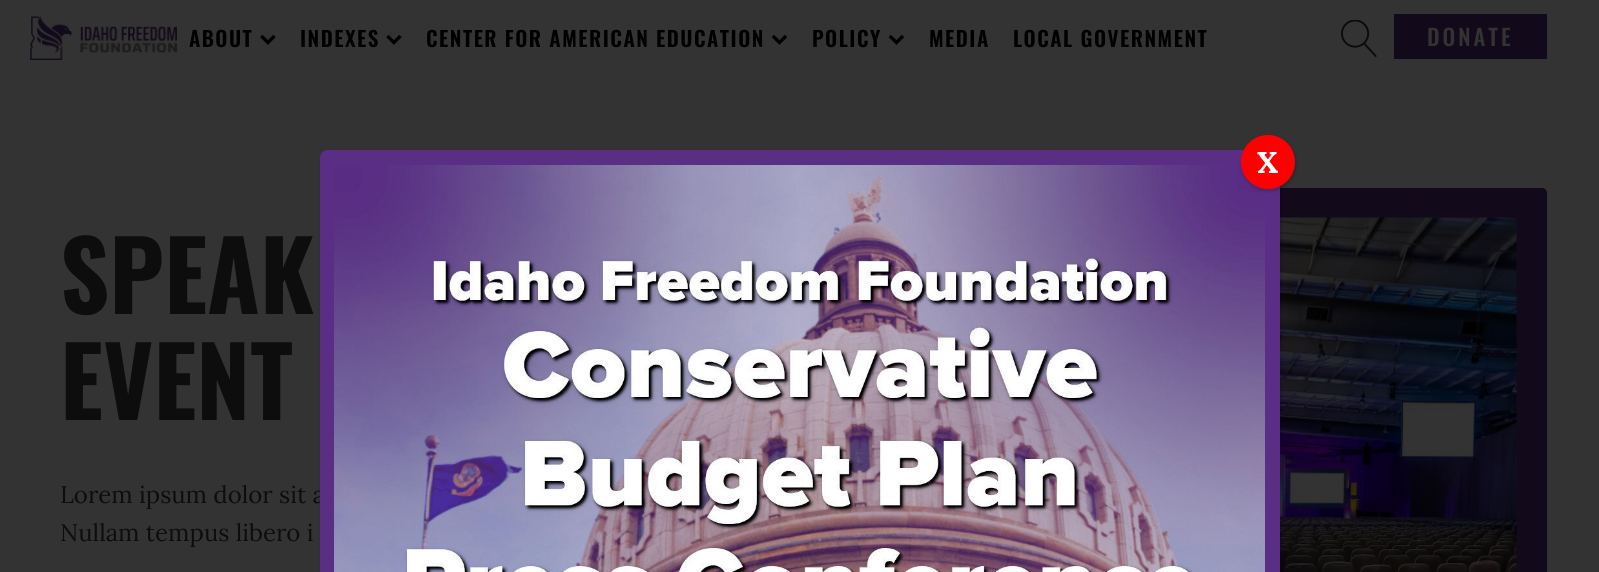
import math
import cairo

surface = cairo.ImageSurface(cairo.FORMAT_RGB24, 1599, 572)
cr = cairo.Context(surface)
options = cairo.FontOptions()
options.set_hint_metrics(cairo.HINT_METRICS_OFF)
options.set_hint_style(cairo.HINT_STYLE_NONE)
cr.set_font_options(options)
cr.set_miter_limit(4)


def rgb(code):
    cr.set_source_rgb(*(v / 255 for v in bytes.fromhex(code[-6:])))


def tracked(x, y, s, letter, word):
    cr.move_to(x, y)
    for ch in s:
        cr.show_text(ch)
        cr.rel_move_to(letter + word * (ch == ' '), 0)


def rrect(x, y, w, h, r):
    cr.new_sub_path()
    for i, (u, v) in enumerate([(x + w - r, y + h - r), (x + r, y + h - r), (x + r, y + r), (x + w - r, y + r)]):
        cr.arc(u, v, r, i * math.pi / 2, (i + 1) * math.pi / 2)
    cr.close_path()


def soft_shadow(x, y, w, h, r, blur, alpha):
    cr.push_group_with_content(cairo.CONTENT_ALPHA)
    cr.set_operator(cairo.OPERATOR_SOURCE)
    for i in range(15, -16, -2):
        e = blur * i / 6
        if min(w, h) + 2 * e > 0:
            cr.set_source_rgba(0, 0, 0, alpha * math.erfc((i - 1) / 8.5) / 2)
            rrect(x - e, y - e, w + 2 * e, h + 2 * e, max(0, min(r + e + blur * .6, min(w, h) / 2 + e)))
            cr.fill()
    cr.mask(cr.pop_group())


def image(path, x, y, w, h):
    cr.save()
    cr.set_source_surface(cairo.ImageSurface.create_from_png(path), x, y)
    cr.rectangle(x, y, w, h)
    cr.fill()
    cr.restore()


rgb("#333333")
cr.paint()
image("img/1.png", 30, 16, 147, 44)
image("img/2.png", 260, 35, 16, 10)
image("img/2.png", 386, 35, 16, 10)
image("img/3.png", 771, 35, 16, 10)
image("img/3.png", 888, 35, 16, 10)
image("img/4.png", 1341, 20, 36, 37)
rgb("#12091b")
cr.rectangle(1394, 14, 153, 45)
cr.fill()
rrect(789, 188, 758, 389, 5)
cr.fill()
image("img/6.png", 1280, 217, 237, 355)
rgb("#020202")
soft_shadow(321, 152, 960, 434, 8, 2, 0.23)
cr.select_font_face("Oswald SemiBold")
cr.set_font_size(21)
rgb("#000000")
for x, y, s in [
    (189, 47, "ABOUT"),
    (300, 47, "INDEXES"),
    (426, 47, "CENTER FOR AMERICAN EDUCATION"),
    (812, 47, "POLICY"),
    (929, 47, "MEDIA"),
    (1013, 47, "LOCAL GOVERNMENT"),
]:
    tracked(x, y, s, 1.5, 0)
cr.select_font_face("Oswald Medium")
cr.set_font_size(22.5)
rgb("#333333")
tracked(1427, 46, "DONATE", 3, 0)
cr.select_font_face("Oswald", cairo.FONT_SLANT_NORMAL, cairo.FONT_WEIGHT_BOLD)
cr.set_font_size(96)
rgb("#0d0d0d")
cr.move_to(60, 314)
cr.show_text("SPEAK")
cr.move_to(60, 420)
cr.show_text("EVENT")
cr.select_font_face("Lora")
cr.set_font_size(24)
cr.move_to(60, 503)
cr.show_text("Lorem ipsum dolor sit a")
rgb("#5b2e85")
cr.new_path()
cr.move_to(328, 150)
cr.line_to(1272, 150)
cr.curve_to(1276.5, 150, 1280, 153.5, 1280, 158)
cr.line_to(1280, 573)
cr.line_to(320, 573)
cr.line_to(320, 158)
cr.curve_to(320, 153.5, 323.5, 150, 328, 150)
cr.close_path()
cr.fill()
image("img/5.png", 334, 165, 931, 407)
rgb("#020202")
soft_shadow(1242, 137, 54, 54, 27, 2, 0.23)
rgb("#ff0000")
cr.arc(1268, 162, 27, 0, 2 * math.pi)
cr.fill()
cr.select_font_face("Lora", cairo.FONT_SLANT_NORMAL, cairo.FONT_WEIGHT_BOLD)
cr.set_font_size(30)
rgb("#ffffff")
cr.move_to(1257, 173)
cr.show_text("X")
cr.select_font_face("Lora")
cr.set_font_size(24)
rgb("#0d0d0d")
cr.move_to(60, 541)
cr.show_text("Nullam tempus libero i")
surface.write_to_png("page.png")
